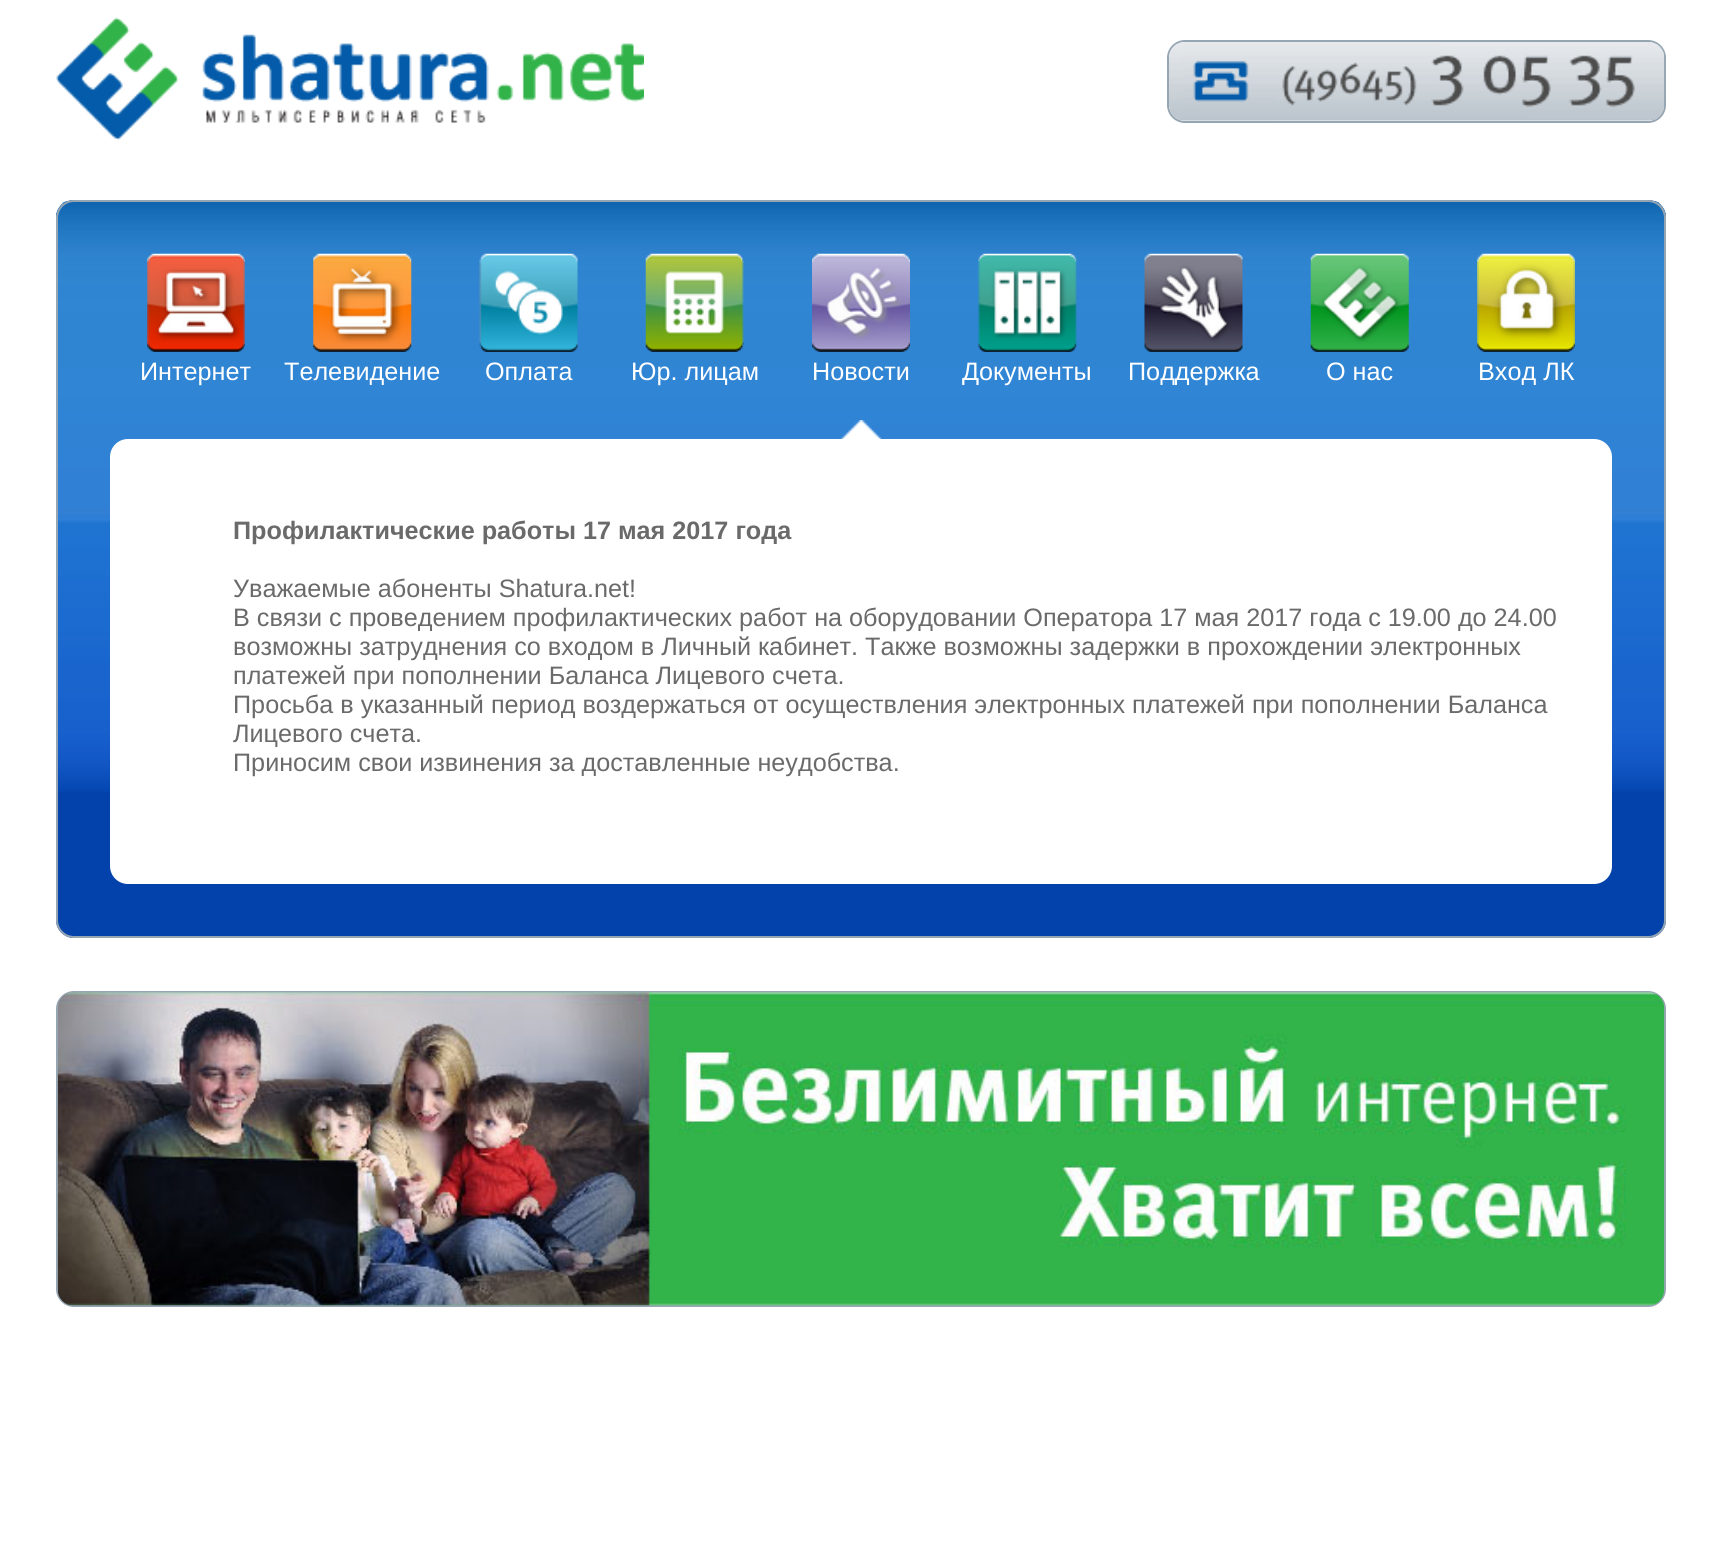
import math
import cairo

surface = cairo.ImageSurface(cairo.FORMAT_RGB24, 1722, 1544)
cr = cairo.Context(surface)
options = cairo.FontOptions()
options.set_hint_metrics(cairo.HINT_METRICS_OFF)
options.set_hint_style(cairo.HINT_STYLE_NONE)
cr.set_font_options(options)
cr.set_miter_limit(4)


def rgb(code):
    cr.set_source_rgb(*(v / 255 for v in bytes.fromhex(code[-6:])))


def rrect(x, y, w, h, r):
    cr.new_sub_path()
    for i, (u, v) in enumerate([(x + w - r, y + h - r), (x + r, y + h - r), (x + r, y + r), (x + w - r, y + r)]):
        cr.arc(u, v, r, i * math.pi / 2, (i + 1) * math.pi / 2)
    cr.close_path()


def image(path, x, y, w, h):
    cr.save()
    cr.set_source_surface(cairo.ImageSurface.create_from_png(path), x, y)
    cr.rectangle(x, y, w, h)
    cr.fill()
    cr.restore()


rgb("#ffffff")
cr.paint()
image("img/1.png", 56, 17, 588, 123)
rrect(1168, 41, 497, 81, 17)
rgb("#95a5b2")
cr.stroke()
image("img/2.png", 1169, 42, 496, 79)
rgb("#0342aa")
rrect(56, 200, 1610, 738, 18)
cr.fill()
image("img/3.png", 56, 201, 1610, 591)
rrect(57, 201, 1608, 736, 17)
rgb("#95a5b2")
cr.stroke()
image("img/4.png", 147, 253, 98, 99)
image("img/5.png", 313, 253, 99, 99)
image("img/6.png", 479, 253, 99, 99)
image("img/7.png", 645, 253, 99, 99)
image("img/8.png", 812, 253, 98, 99)
image("img/9.png", 840, 420, 42, 19)
image("img/10.png", 978, 253, 99, 99)
image("img/11.png", 1144, 253, 99, 99)
image("img/12.png", 1310, 253, 99, 99)
image("img/13.png", 1477, 253, 98, 99)
rgb("#ffffff")
rrect(110, 439, 1502, 445, 18)
cr.fill()
rrect(57, 992, 1608, 314, 17)
rgb("#95a5b2")
cr.stroke()
image("img/14.png", 57, 992, 1608, 314)
cr.select_font_face("Liberation Sans")
cr.set_font_size(25.2)
rgb("#ffffff")
for x, y, s in [
    (140, 380, "Интернет"),
    (284, 380, "Телевидение"),
    (485, 380, "Оплата"),
    (631, 380, "Юр. лицам"),
    (812, 380, "Новости"),
    (962, 380, "Документы"),
    (1128, 380, "Поддержка"),
    (1326, 380, "О нас"),
    (1478, 380, "Вход ЛК"),
]:
    cr.move_to(x, y)
    cr.show_text(s)
cr.select_font_face("Liberation Sans", cairo.FONT_SLANT_NORMAL, cairo.FONT_WEIGHT_BOLD)
rgb("#6a6a6a")
cr.move_to(233, 539)
cr.show_text("Профилактические работы 17 мая 2017 года")
cr.select_font_face("Liberation Sans")
for x, y, s in [
    (233, 597, "Уважаемые абоненты Shatura.net!"),
    (233, 626, "В связи с проведением профилактических работ на оборудовании Оператора 17 мая 2017 года с 19.00 до 24.00"),
    (233, 655, "возможны затруднения со входом в Личный кабинет. Также возможны задержки в прохождении электронных"),
    (233, 684, "платежей при пополнении Баланса Лицевого счета."),
    (233, 713, "Просьба в указанный период воздержаться от осуществления электронных платежей при пополнении Баланса"),
    (233, 742, "Лицевого счета."),
    (233, 771, "Приносим свои извинения за доставленные неудобства."),
]:
    cr.move_to(x, y)
    cr.show_text(s)
surface.write_to_png("page.png")
